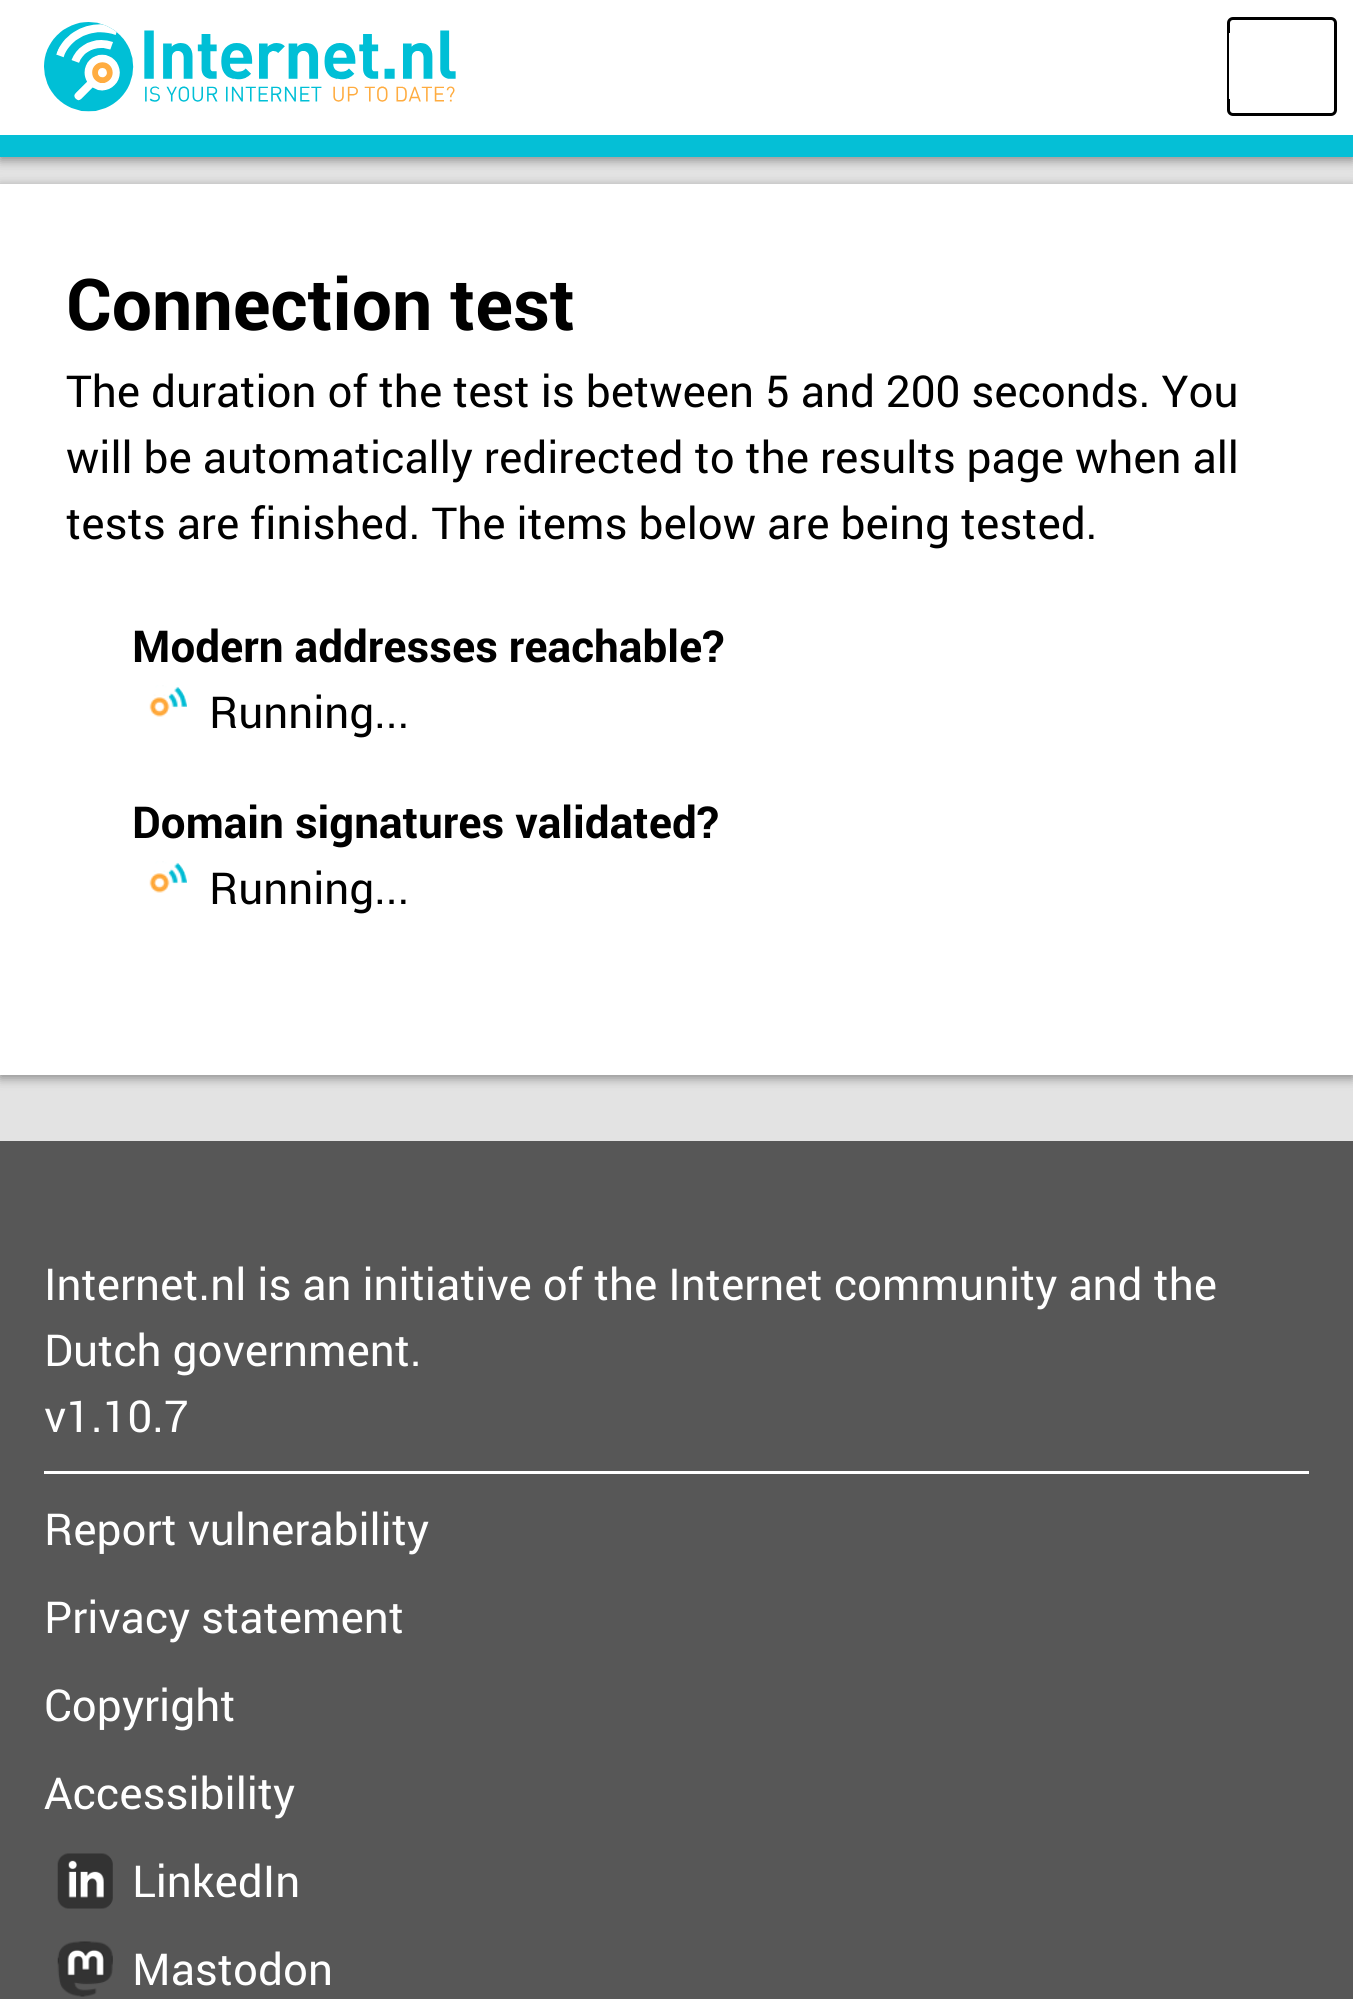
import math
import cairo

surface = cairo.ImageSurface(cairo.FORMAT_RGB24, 1353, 1999)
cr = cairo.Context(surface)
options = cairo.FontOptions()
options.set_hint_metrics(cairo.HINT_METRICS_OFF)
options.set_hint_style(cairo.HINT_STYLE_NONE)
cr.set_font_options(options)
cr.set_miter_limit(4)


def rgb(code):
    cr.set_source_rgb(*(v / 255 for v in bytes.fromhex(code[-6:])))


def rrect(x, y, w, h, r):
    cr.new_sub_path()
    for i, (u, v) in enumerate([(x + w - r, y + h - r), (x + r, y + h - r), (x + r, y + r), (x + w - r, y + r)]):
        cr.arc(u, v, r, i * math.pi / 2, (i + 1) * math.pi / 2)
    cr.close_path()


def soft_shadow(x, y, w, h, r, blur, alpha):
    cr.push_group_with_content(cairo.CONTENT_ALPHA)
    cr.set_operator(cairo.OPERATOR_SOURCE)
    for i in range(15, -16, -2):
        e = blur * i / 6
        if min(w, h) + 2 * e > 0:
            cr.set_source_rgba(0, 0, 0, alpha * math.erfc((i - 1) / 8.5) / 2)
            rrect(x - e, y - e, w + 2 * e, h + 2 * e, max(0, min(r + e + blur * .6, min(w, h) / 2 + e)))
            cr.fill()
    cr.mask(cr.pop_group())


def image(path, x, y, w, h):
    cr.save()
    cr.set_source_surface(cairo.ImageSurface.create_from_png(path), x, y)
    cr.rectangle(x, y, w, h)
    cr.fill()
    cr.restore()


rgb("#e3e3e3")
cr.paint()
rgb("#888888")
soft_shadow(0, 3, 1353, 157, 0, 5.5, 1)
rgb("#ffffff")
cr.rectangle(0, 0, 1353, 135)
cr.fill()
rgb("#05bfd6")
cr.rectangle(0, 135, 1353, 22)
cr.fill()
image("img/1.png", 44, 22, 412, 90)
rrect(1228.5, 18.5, 107, 96, 4.5)
rgb("#000000")
cr.set_line_width(3)
cr.stroke()
rgb("#ffffff")
cr.rectangle(1229, 33, 1, 66)
cr.fill()
rgb("#888888")
soft_shadow(0, 187, 1353, 891, 0, 5.5, 1)
rgb("#ffffff")
cr.rectangle(0, 184, 1353, 891)
cr.fill()
image("img/2.png", 149, 685, 38, 32)
image("img/2.png", 149, 861, 38, 32)
rgb("#575757")
cr.rectangle(0, 1141, 1353, 858)
cr.fill()
rgb("#ffffff")
cr.rectangle(44, 1471, 1265, 3)
cr.fill()
image("img/3.png", 57, 1853, 56, 56)
image("img/4.png", 57, 1941, 56, 56)
cr.select_font_face("roboto", cairo.FONT_SLANT_NORMAL, cairo.FONT_WEIGHT_BOLD)
cr.set_font_size(71.5)
rgb("#000000")
cr.move_to(66, 330)
cr.show_text("Connection test")
cr.select_font_face("roboto")
cr.set_font_size(44)
for x, y, s in [
    (66, 407, "The duration of the test is between 5 and 200 seconds. You"),
    (66, 473, "will be automatically redirected to the results page when all"),
    (66, 539, "tests are finished. The items below are being tested."),
]:
    cr.move_to(x, y)
    cr.show_text(s)
cr.select_font_face("roboto", cairo.FONT_SLANT_NORMAL, cairo.FONT_WEIGHT_BOLD)
cr.move_to(132, 662)
cr.show_text("Modern addresses reachable?")
cr.select_font_face("roboto")
cr.move_to(209, 728)
cr.show_text("Running...")
cr.select_font_face("roboto", cairo.FONT_SLANT_NORMAL, cairo.FONT_WEIGHT_BOLD)
cr.move_to(132, 838)
cr.show_text("Domain signatures validated?")
cr.select_font_face("roboto")
cr.move_to(209, 904)
cr.show_text("Running...")
rgb("#ffffff")
for x, y, s in [
    (44, 1300, "Internet.nl is an initiative of the Internet community and the"),
    (44, 1366, "Dutch government."),
    (44, 1432, "v1.10.7"),
    (44, 1545, "Report vulnerability"),
    (44, 1633, "Privacy statement"),
    (44, 1721, "Copyright"),
    (44, 1809, "Accessibility"),
    (132, 1897, "LinkedIn"),
    (132, 1985, "Mastodon"),
]:
    cr.move_to(x, y)
    cr.show_text(s)
surface.write_to_png("page.png")
